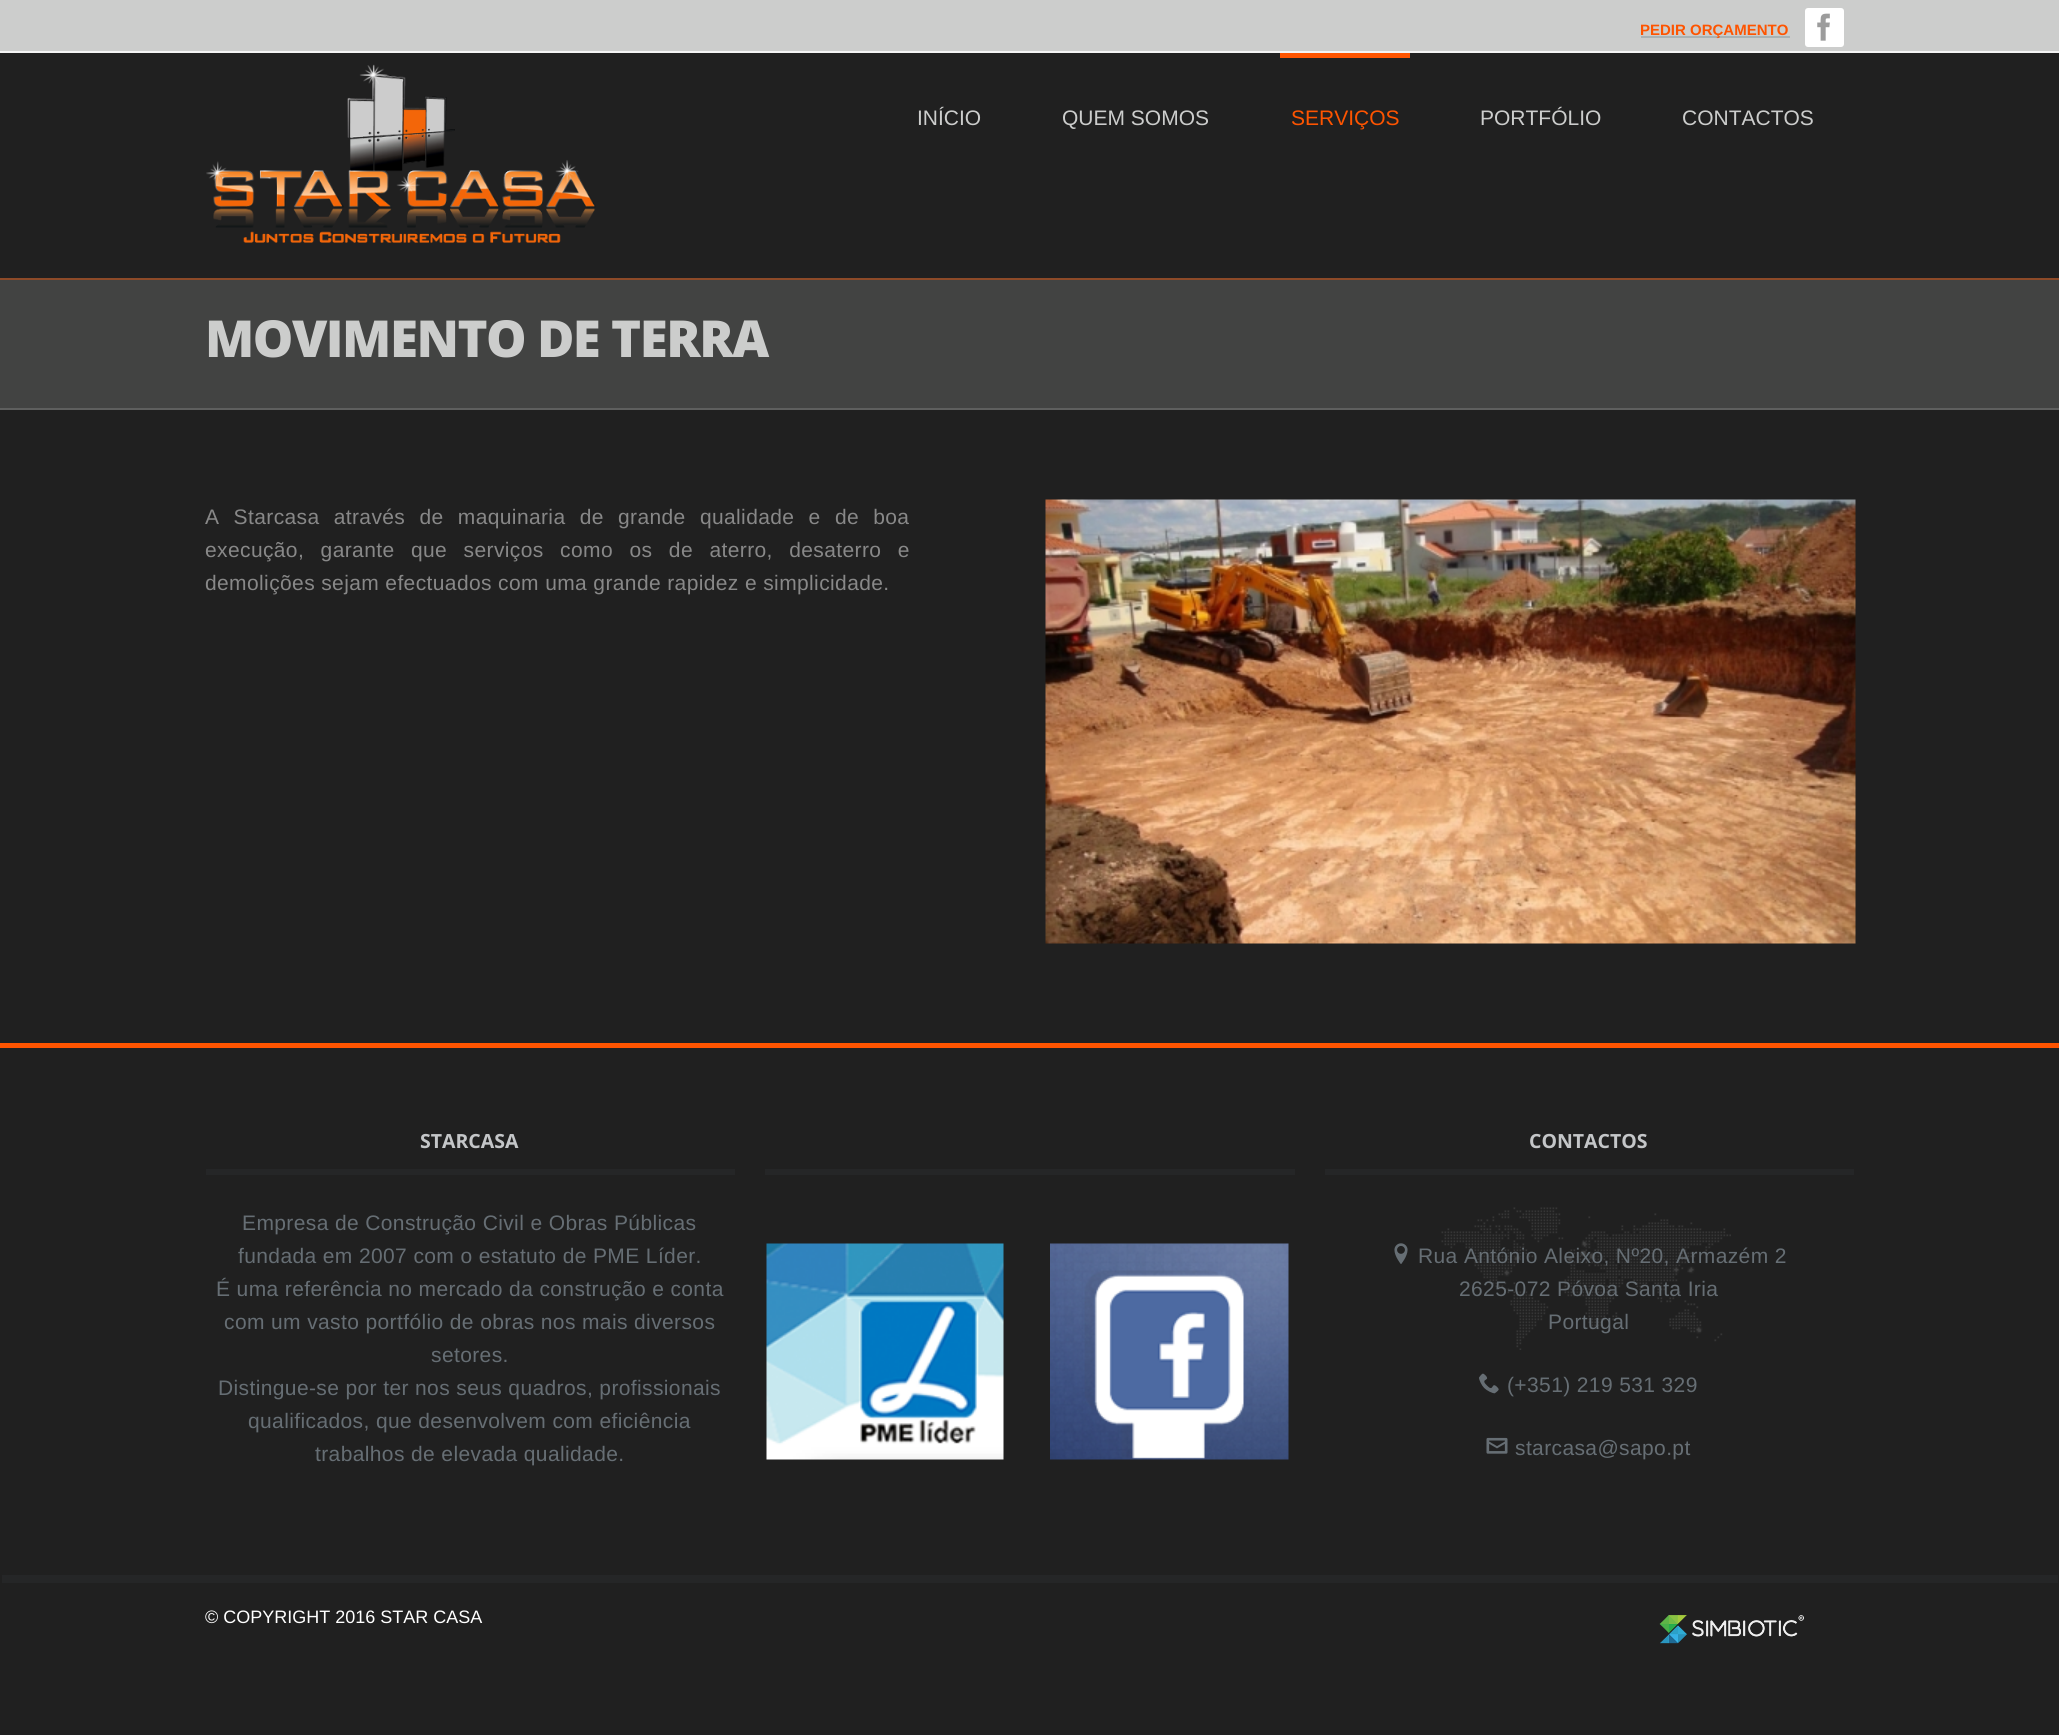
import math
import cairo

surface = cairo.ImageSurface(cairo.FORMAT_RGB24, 2059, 1735)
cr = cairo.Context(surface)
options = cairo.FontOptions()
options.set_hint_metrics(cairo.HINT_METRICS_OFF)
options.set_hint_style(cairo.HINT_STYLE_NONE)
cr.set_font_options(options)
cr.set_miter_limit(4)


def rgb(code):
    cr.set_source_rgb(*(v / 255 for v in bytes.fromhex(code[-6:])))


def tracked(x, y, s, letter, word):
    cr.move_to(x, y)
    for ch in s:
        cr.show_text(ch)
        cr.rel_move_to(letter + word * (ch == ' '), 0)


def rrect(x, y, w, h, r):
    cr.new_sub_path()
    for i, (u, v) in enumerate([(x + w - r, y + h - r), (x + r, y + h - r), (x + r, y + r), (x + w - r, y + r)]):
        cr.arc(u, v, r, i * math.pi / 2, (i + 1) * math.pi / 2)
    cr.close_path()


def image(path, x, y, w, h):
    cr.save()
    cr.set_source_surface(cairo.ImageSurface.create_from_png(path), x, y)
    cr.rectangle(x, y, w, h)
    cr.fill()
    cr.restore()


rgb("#202020")
cr.paint()
for x, y, w, h, color in [
    (0, 0, 2059, 51, "#cccdcc"),
    (0, 51, 2059, 2, "#f3f3f3"),
    (1641, 36, 149, 2, "#a9b2b4"),
]:
    rgb(color)
    cr.rectangle(x, y, w, h)
    cr.fill()
rgb("#ffffff")
rrect(1805, 8, 39, 39, 3)
cr.fill()
image("img/1.png", 1817, 13, 13, 28)
image("img/2.png", 206, 64, 390, 179)
for x, y, w, h, color in [
    (1280, 53, 130, 5, "#fe5400"),
    (0, 280, 2059, 128, "#424342"),
    (0, 278, 2059, 2, "#8d4a28"),
    (0, 408, 2059, 2, "#5e5f5e"),
]:
    rgb(color)
    cr.rectangle(x, y, w, h)
    cr.fill()
image("img/3.png", 1045, 499, 811, 445)
for x, y, w, h, color in [
    (0, 1043, 2059, 5, "#fe5400"),
    (206, 1169, 529, 6, "#252627"),
    (765, 1169, 530, 6, "#252627"),
]:
    rgb(color)
    cr.rectangle(x, y, w, h)
    cr.fill()
image("img/4.png", 766, 1243, 238, 217)
image("img/5.png", 1050, 1243, 239, 217)
image("img/6.png", 1441, 1207, 290, 143)
cr.rectangle(1325, 1169, 529, 6)
cr.fill()
image("img/7.png", 1394, 1243, 14, 21)
image("img/8.png", 1479, 1373, 20, 21)
image("img/9.png", 1486, 1437, 22, 17)
cr.rectangle(2, 1575, 2056, 8)
cr.fill()
image("img/10.png", 1659, 1615, 145, 29)
cr.select_font_face("Liberation Sans", cairo.FONT_SLANT_NORMAL, cairo.FONT_WEIGHT_BOLD)
cr.set_font_size(15)
rgb("#fe5400")
cr.move_to(1640, 35)
cr.show_text("PEDIR ORÇAMENTO")
cr.select_font_face("Liberation Sans")
cr.set_font_size(21)
rgb("#cccdcc")
cr.move_to(917, 125)
cr.show_text("INÍCIO")
cr.move_to(1062, 125)
cr.show_text("QUEM SOMOS")
rgb("#fe5400")
cr.move_to(1291, 125)
cr.show_text("SERVIÇOS")
rgb("#cccdcc")
cr.move_to(1480, 125)
cr.show_text("PORTFÓLIO")
cr.move_to(1682, 125)
cr.show_text("CONTACTOS")
cr.select_font_face("Open Sans ExtraBold")
cr.set_font_size(51)
tracked(205, 357, "MOVIMENTO DE TERRA", -1.5, 0)
cr.select_font_face("Liberation Sans")
cr.set_font_size(21)
rgb("#888888")
tracked(205, 524, "A Starcasa através de maquinaria de grande qualidade e de boa", 0.38, 8)
tracked(205, 557, "execução, garante que serviços como os de aterro, desaterro e", 0.38, 10.25)
tracked(205, 590, "demolições sejam efectuados com uma grande rapidez e simplicidade.", 0.38, 0)
cr.select_font_face("Open Sans", cairo.FONT_SLANT_NORMAL, cairo.FONT_WEIGHT_BOLD)
cr.set_font_size(19.5)
rgb("#c4c6c8")
cr.move_to(420, 1148)
cr.show_text("STARCASA")
cr.select_font_face("Liberation Sans")
cr.set_font_size(21)
rgb("#666e74")
for x, y, s in [
    (242, 1230, "Empresa de Construção Civil e Obras Públicas"),
    (238, 1263, "fundada em 2007 com o estatuto de PME Líder."),
    (216, 1296, "É uma referência no mercado da construção e conta"),
    (224, 1329, "com um vasto portfólio de obras nos mais diversos"),
    (431, 1362, "setores."),
    (218, 1395, "Distingue-se por ter nos seus quadros, profissionais"),
    (248, 1428, "qualificados, que desenvolvem com eficiência"),
    (315, 1461, "trabalhos de elevada qualidade."),
]:
    tracked(x, y, s, 0.38, 0)
cr.select_font_face("Open Sans", cairo.FONT_SLANT_NORMAL, cairo.FONT_WEIGHT_BOLD)
cr.set_font_size(19.5)
rgb("#c4c6c8")
cr.move_to(1529, 1148)
cr.show_text("CONTACTOS")
cr.select_font_face("Liberation Sans")
cr.set_font_size(21)
rgb("#666e74")
for x, y, s in [
    (1418, 1263, "Rua António Aleixo, Nº20, Armazém 2"),
    (1459, 1296, "2625-072 Póvoa Santa Iria"),
    (1548, 1329, "Portugal"),
    (1507, 1392, "(+351) 219 531 329"),
    (1515, 1455, "starcasa@sapo.pt"),
]:
    tracked(x, y, s, 0.38, 0)
cr.set_font_size(18)
rgb("#ffffff")
cr.move_to(205, 1623)
cr.show_text("© COPYRIGHT 2016 STAR CASA")
surface.write_to_png("page.png")
